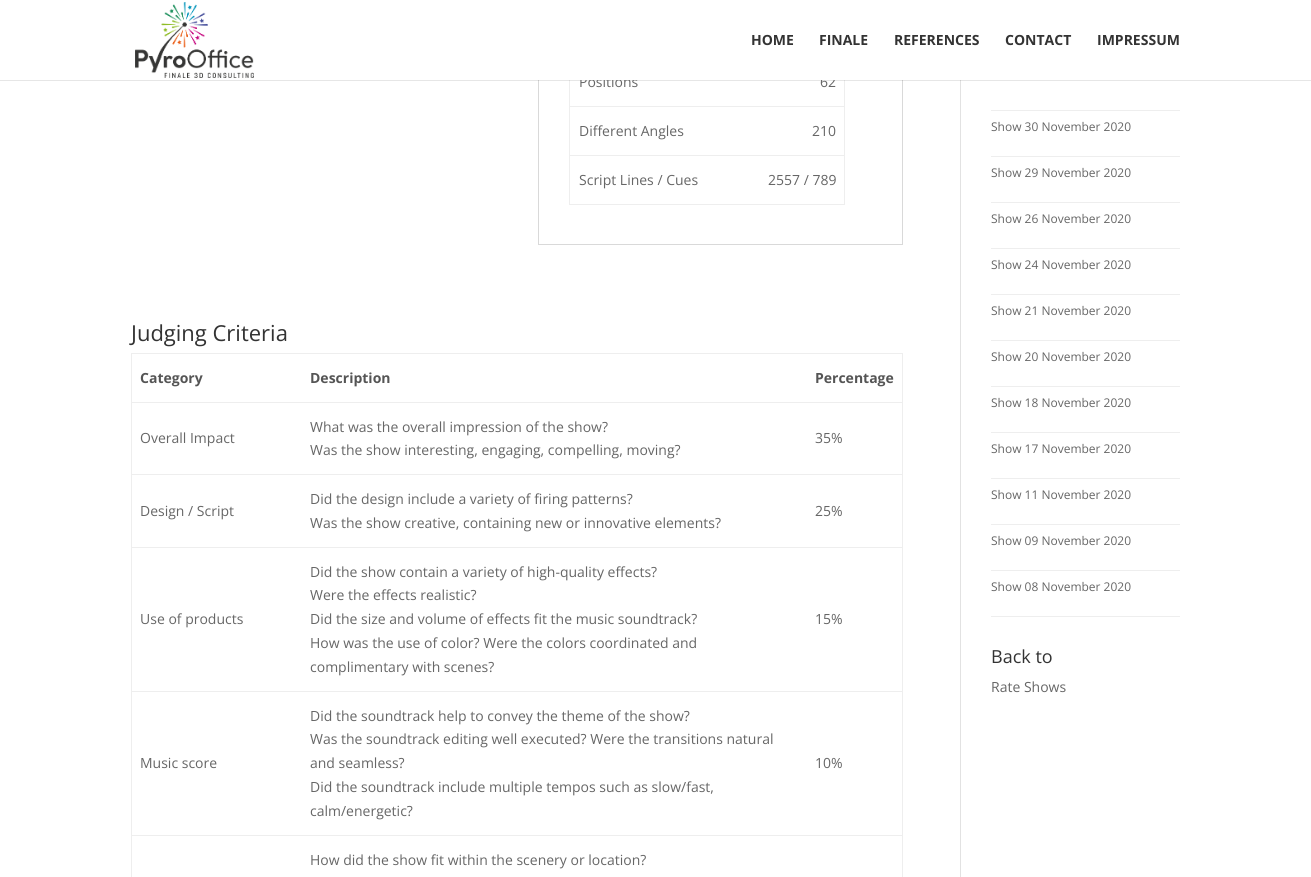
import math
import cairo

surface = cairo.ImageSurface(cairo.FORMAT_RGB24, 1311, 877)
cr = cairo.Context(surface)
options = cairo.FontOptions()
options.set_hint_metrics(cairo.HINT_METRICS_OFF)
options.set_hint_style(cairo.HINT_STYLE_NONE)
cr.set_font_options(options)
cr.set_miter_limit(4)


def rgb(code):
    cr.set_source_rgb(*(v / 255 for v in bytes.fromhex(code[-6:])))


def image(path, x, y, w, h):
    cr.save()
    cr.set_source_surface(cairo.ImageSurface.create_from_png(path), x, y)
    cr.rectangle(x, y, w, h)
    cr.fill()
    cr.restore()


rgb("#ffffff")
cr.paint()
cr.rectangle(538.5, -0.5, 364, 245)
rgb("#d9d9d9")
cr.set_line_width(1)
cr.stroke()
rgb("#eeeeee")
cr.rectangle(844, 80, 1, 125)
cr.rectangle(569, 204, 276, 1)
cr.rectangle(569, 80, 1, 125)
cr.fill()
rgb("#e2e2e2")
cr.rectangle(960, 80, 1, 797)
cr.fill()
cr.set_source_rgba(0, 0, 0, 0.1)
cr.rectangle(0, 80, 1311, 1)
cr.fill()
image("img/1.png", 135, 2, 119, 76)
for x, y, w, h, color in [
    (569, 106, 276, 1, "#eeeeee"),
    (569, 155, 276, 1, "#eeeeee"),
    (131, 353, 772, 1, "#eeeeee"),
    (902, 353, 1, 524, "#eeeeee"),
    (131, 353, 1, 524, "#eeeeee"),
    (131, 402, 772, 1, "#eeeeee"),
    (131, 474, 772, 1, "#eeeeee"),
    (131, 547, 772, 1, "#eeeeee"),
    (131, 691, 772, 1, "#eeeeee"),
    (131, 835, 772, 1, "#eeeeee"),
    (991, 110, 189, 1, "#eeeeee"),
    (991, 156, 189, 1, "#eeeeee"),
    (991, 202, 189, 1, "#eeeeee"),
    (991, 248, 189, 1, "#eeeeee"),
    (991, 294, 189, 1, "#eeeeee"),
    (991, 340, 189, 1, "#eeeeee"),
    (991, 386, 189, 1, "#eeeeee"),
    (991, 432, 189, 1, "#eeeeee"),
    (991, 478, 189, 1, "#eeeeee"),
    (991, 524, 189, 1, "#eeeeee"),
    (991, 570, 189, 1, "#eeeeee"),
    (991, 616, 189, 1, "#eeeeee"),
]:
    rgb(color)
    cr.rectangle(x, y, w, h)
    cr.fill()
cr.select_font_face("Open Sans", cairo.FONT_SLANT_NORMAL, cairo.FONT_WEIGHT_BOLD)
cr.set_font_size(14)
rgb("#333333")
cr.move_to(1005, 45)
cr.show_text("CONTACT")
cr.move_to(1097, 45)
cr.show_text("IMPRESSUM")
cr.select_font_face("Open Sans")
rgb("#666666")
cr.move_to(579, 87)
cr.show_text("Positions")
cr.move_to(820, 87)
cr.show_text("62")
rgb("#ffffff")
cr.rectangle(538, 0, 365, 80)
cr.fill()
cr.select_font_face("Open Sans", cairo.FONT_SLANT_NORMAL, cairo.FONT_WEIGHT_BOLD)
rgb("#333333")
for x, y, s in [
    (894, 45, "REFERENCES"),
    (819, 45, "FINALE"),
    (751, 45, "HOME"),
]:
    cr.move_to(x, y)
    cr.show_text(s)
cr.select_font_face("Open Sans")
rgb("#666666")
for x, y, s in [
    (579, 136, "Different Angles"),
    (812, 136, "210"),
    (579, 185, "Script Lines / Cues"),
    (768, 185, "2557 / 789"),
]:
    cr.move_to(x, y)
    cr.show_text(s)
cr.set_font_size(22)
rgb("#333333")
cr.move_to(131, 341)
cr.show_text("Judging Criteria")
cr.select_font_face("Open Sans", cairo.FONT_SLANT_NORMAL, cairo.FONT_WEIGHT_BOLD)
cr.set_font_size(14)
rgb("#555555")
for x, y, s in [
    (140, 383, "Category"),
    (310, 383, "Description"),
    (815, 383, "Percentage"),
]:
    cr.move_to(x, y)
    cr.show_text(s)
cr.select_font_face("Open Sans")
rgb("#666666")
for x, y, s in [
    (140, 443, "Overall Impact"),
    (310, 432, "What was the overall impression of the show?"),
    (310, 455, "Was the show interesting, engaging, compelling, moving?"),
    (815, 443, "35%"),
    (140, 516, "Design / Script"),
    (310, 504, "Did the design include a variety of firing patterns?"),
    (310, 528, "Was the show creative, containing new or innovative elements?"),
    (815, 516, "25%"),
    (140, 624, "Use of products"),
    (310, 577, "Did the show contain a variety of high-quality effects?"),
    (310, 600, "Were the effects realistic?"),
    (310, 624, "Did the size and volume of effects fit the music soundtrack?"),
    (310, 648, "How was the use of color? Were the colors coordinated and"),
    (310, 672, "complimentary with scenes?"),
    (815, 624, "15%"),
    (140, 768, "Music score"),
    (310, 721, "Did the soundtrack help to convey the theme of the show?"),
    (310, 744, "Was the soundtrack editing well executed? Were the transitions natural"),
    (310, 768, "and seamless?"),
    (310, 792, "Did the soundtrack include multiple tempos such as slow/fast,"),
    (310, 816, "calm/energetic?"),
    (815, 768, "10%"),
    (310, 865, "How did the show fit within the scenery or location?"),
]:
    cr.move_to(x, y)
    cr.show_text(s)
cr.set_font_size(12)
for x, y, s in [
    (991, 131, "Show 30 November 2020"),
    (991, 177, "Show 29 November 2020"),
    (991, 223, "Show 26 November 2020"),
    (991, 269, "Show 24 November 2020"),
    (991, 315, "Show 21 November 2020"),
    (991, 361, "Show 20 November 2020"),
    (991, 407, "Show 18 November 2020"),
    (991, 453, "Show 17 November 2020"),
    (991, 499, "Show 11 November 2020"),
    (991, 545, "Show 09 November 2020"),
    (991, 591, "Show 08 November 2020"),
]:
    cr.move_to(x, y)
    cr.show_text(s)
cr.set_font_size(18)
rgb("#333333")
cr.move_to(991, 663)
cr.show_text("Back to")
cr.set_font_size(14)
rgb("#666666")
cr.move_to(991, 692)
cr.show_text("Rate Shows")
surface.write_to_png("page.png")
